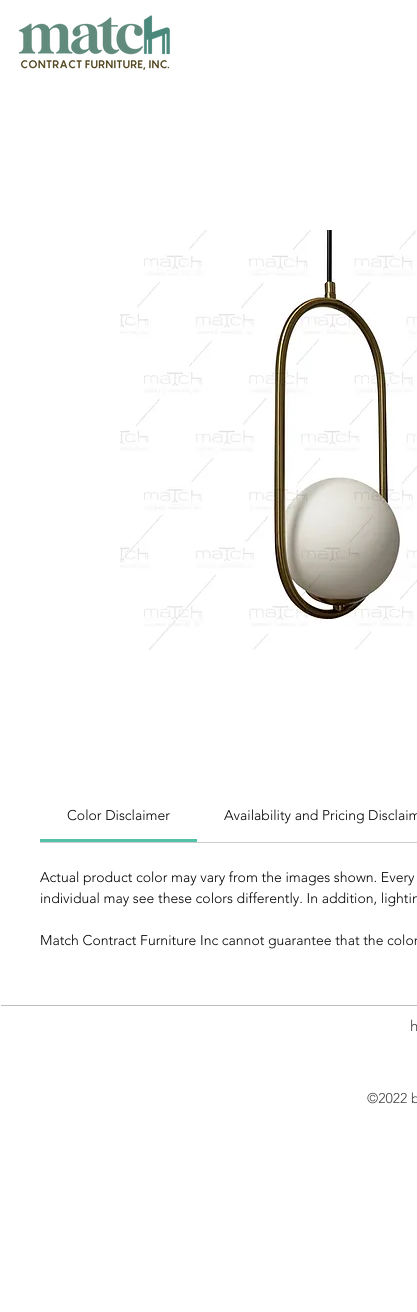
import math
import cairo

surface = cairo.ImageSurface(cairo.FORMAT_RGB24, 417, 1312)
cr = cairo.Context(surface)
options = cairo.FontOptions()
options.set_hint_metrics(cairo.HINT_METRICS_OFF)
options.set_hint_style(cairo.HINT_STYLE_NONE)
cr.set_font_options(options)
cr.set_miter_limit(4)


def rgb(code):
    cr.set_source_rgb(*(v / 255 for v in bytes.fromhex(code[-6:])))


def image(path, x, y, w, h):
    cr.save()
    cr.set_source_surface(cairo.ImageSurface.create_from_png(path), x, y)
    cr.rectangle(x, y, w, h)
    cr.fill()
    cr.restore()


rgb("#ffffff")
cr.paint()
image("img/1.png", 18, 15, 152, 55)
image("img/2.png", 120, 230, 297, 420)
for x, y, w, h, color in [
    (40, 842, 377, 1, "#cccccc"),
    (40, 839, 157, 3, "#51c2a8"),
    (1, 1005, 416, 1, "#bfbfbf"),
]:
    rgb(color)
    cr.rectangle(x, y, w, h)
    cr.fill()
cr.select_font_face("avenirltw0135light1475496 Light")
cr.set_font_size(14)
rgb("#000000")
for x, y, s in [
    (67, 820, "Color Disclaimer"),
    (224, 820, "Availability and Pricing Disclaim"),
    (40, 882, "Actual product color may vary from the images shown. Every"),
    (40, 903, "individual may see these colors differently. In addition, lightin"),
    (40, 945, "Match Contract Furniture Inc cannot guarantee that the color"),
]:
    cr.move_to(x, y)
    cr.show_text(s)
cr.set_font_size(15)
rgb("#404040")
cr.move_to(410, 1031)
cr.show_text("h")
cr.set_font_size(14)
cr.move_to(367, 1103)
cr.show_text("©2022 b")
surface.write_to_png("page.png")
